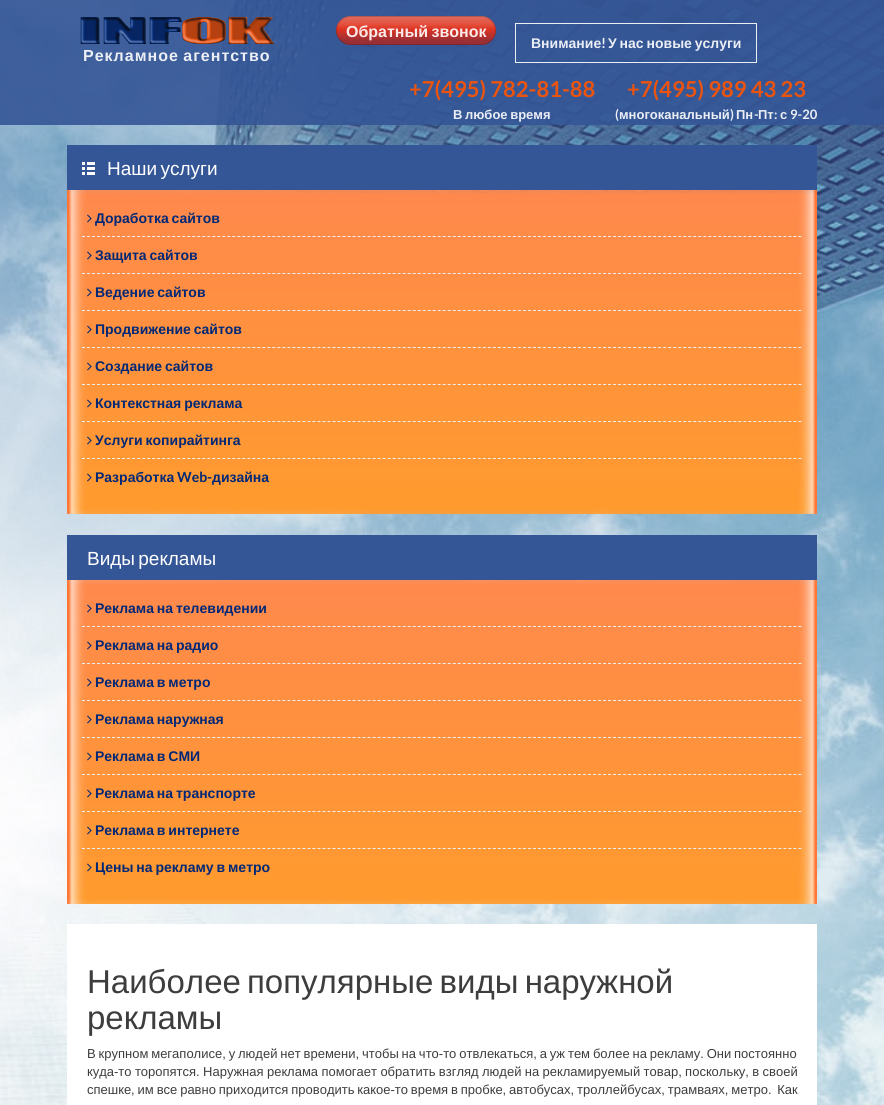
import math
import cairo

surface = cairo.ImageSurface(cairo.FORMAT_RGB24, 884, 1105)
cr = cairo.Context(surface)
options = cairo.FontOptions()
options.set_hint_metrics(cairo.HINT_METRICS_OFF)
options.set_hint_style(cairo.HINT_STYLE_NONE)
cr.set_font_options(options)
cr.set_miter_limit(4)


def rgb(code):
    cr.set_source_rgb(*(v / 255 for v in bytes.fromhex(code[-6:])))


def tracked(x, y, s, letter, word):
    cr.move_to(x, y)
    for ch in s:
        cr.show_text(ch)
        cr.rel_move_to(letter + word * (ch == ' '), 0)


def rrect(x, y, w, h, r):
    cr.new_sub_path()
    for i, (u, v) in enumerate([(x + w - r, y + h - r), (x + r, y + h - r), (x + r, y + r), (x + w - r, y + r)]):
        cr.arc(u, v, r, i * math.pi / 2, (i + 1) * math.pi / 2)
    cr.close_path()


def image(path, x, y, w, h):
    cr.save()
    cr.set_source_surface(cairo.ImageSurface.create_from_png(path), x, y)
    cr.rectangle(x, y, w, h)
    cr.fill()
    cr.restore()


rgb("#ffffff")
cr.paint()
image("img/1.png", 0, 0, 884, 1105)
cr.set_source_rgba(0.204, 0.337, 0.588, 0.9)
cr.rectangle(0, 0, 884, 125)
cr.fill()
gradient = cairo.LinearGradient(416, 16, 416, 45)
gradient.add_color_stop_rgba(0, 0.945, 0.435, 0.361, 0.9)
gradient.add_color_stop_rgba(0.28, 0.973, 0.314, 0.196, 0.9)
gradient.add_color_stop_rgba(0.46, 0.941, 0.184, 0.09, 0.9)
gradient.add_color_stop_rgba(0.86, 0.647, 0.165, 0.165, 0.9)
gradient.add_color_stop_rgba(1, 0.647, 0.165, 0.165, 0.9)
cr.set_source(gradient)
rrect(336, 16, 160, 29, 14.5)
cr.fill()
rrect(336.5, 16.5, 159, 28, 14)
cr.set_source_rgba(0, 0, 0, 0.18)
cr.set_line_width(1)
cr.stroke()
cr.rectangle(515.5, 23.5, 241, 39)
cr.set_source_rgba(1, 1, 1, 0.9)
cr.stroke()
image("img/2.png", 80, 17, 195, 27)
rgb("#345696")
cr.rectangle(67, 145, 750, 45)
cr.fill()
image("img/3.png", 82, 162, 13, 13)
image("img/4.png", 67, 190, 750, 324)
image("img/5.png", 87, 214, 5, 9)
cr.new_path()
cr.move_to(82, 236.5)
cr.line_to(802, 236.5)
rgb("#eeeeee")
cr.set_dash([3, 2.01])
cr.stroke()
image("img/6.png", 87, 251, 5, 9)
cr.new_path()
cr.move_to(82, 273.5)
cr.line_to(802, 273.5)
cr.stroke()
image("img/7.png", 87, 288, 5, 9)
cr.new_path()
cr.move_to(82, 310.5)
cr.line_to(802, 310.5)
cr.stroke()
image("img/8.png", 87, 325, 5, 9)
cr.new_path()
cr.move_to(82, 347.5)
cr.line_to(802, 347.5)
cr.stroke()
image("img/9.png", 87, 362, 5, 9)
cr.new_path()
cr.move_to(82, 384.5)
cr.line_to(802, 384.5)
cr.stroke()
image("img/10.png", 87, 399, 5, 9)
cr.new_path()
cr.move_to(82, 421.5)
cr.line_to(802, 421.5)
cr.stroke()
image("img/11.png", 87, 436, 5, 9)
cr.new_path()
cr.move_to(82, 458.5)
cr.line_to(802, 458.5)
cr.stroke()
image("img/12.png", 87, 473, 5, 9)
rgb("#345696")
cr.rectangle(67, 535, 750, 45)
cr.fill()
image("img/4.png", 67, 580, 750, 324)
image("img/5.png", 87, 604, 5, 9)
cr.new_path()
cr.move_to(82, 626.5)
cr.line_to(802, 626.5)
rgb("#eeeeee")
cr.stroke()
image("img/6.png", 87, 641, 5, 9)
cr.new_path()
cr.move_to(82, 663.5)
cr.line_to(802, 663.5)
cr.stroke()
image("img/7.png", 87, 678, 5, 9)
cr.new_path()
cr.move_to(82, 700.5)
cr.line_to(802, 700.5)
cr.stroke()
image("img/8.png", 87, 715, 5, 9)
cr.new_path()
cr.move_to(82, 737.5)
cr.line_to(802, 737.5)
cr.stroke()
image("img/9.png", 87, 752, 5, 9)
cr.new_path()
cr.move_to(82, 774.5)
cr.line_to(802, 774.5)
cr.stroke()
image("img/10.png", 87, 789, 5, 9)
cr.new_path()
cr.move_to(82, 811.5)
cr.line_to(802, 811.5)
cr.stroke()
image("img/11.png", 87, 826, 5, 9)
cr.new_path()
cr.move_to(82, 848.5)
cr.line_to(802, 848.5)
cr.stroke()
image("img/12.png", 87, 863, 5, 9)
rgb("#ffffff")
cr.rectangle(67, 924, 750, 181)
cr.fill()
cr.select_font_face("Liberation Sans", cairo.FONT_SLANT_NORMAL, cairo.FONT_WEIGHT_BOLD)
cr.set_font_size(16)
rgb("#faebea")
tracked(346, 37, "Обратный звонок", 0, -1)
cr.set_font_size(14)
rgb("#ebeef5")
cr.move_to(531, 48)
cr.show_text("Внимание")
cr.select_font_face("Lato", cairo.FONT_SLANT_NORMAL, cairo.FONT_WEIGHT_BOLD)
cr.move_to(601, 48)
cr.show_text("!")
cr.select_font_face("Liberation Sans", cairo.FONT_SLANT_NORMAL, cairo.FONT_WEIGHT_BOLD)
tracked(608, 48, "У нас новые услуги", 0, -1)
cr.set_font_size(16)
tracked(83, 61, "Рекламное агентство", 1, -1)
cr.select_font_face("Lato", cairo.FONT_SLANT_NORMAL, cairo.FONT_WEIGHT_BOLD)
cr.set_font_size(22)
rgb("#eb540f")
cr.move_to(409, 97)
cr.show_text("+7(495) 782-81-88")
cr.select_font_face("Liberation Sans", cairo.FONT_SLANT_NORMAL, cairo.FONT_WEIGHT_BOLD)
cr.set_font_size(13)
rgb("#ebeef5")
tracked(453, 119, "В любое время", 0, -1)
cr.select_font_face("Lato", cairo.FONT_SLANT_NORMAL, cairo.FONT_WEIGHT_BOLD)
cr.set_font_size(22)
rgb("#eb540f")
cr.move_to(627, 97)
cr.show_text("+7(495) 989 43 23")
cr.set_font_size(13)
rgb("#ebeef5")
cr.move_to(615, 119)
cr.show_text("(")
cr.select_font_face("Liberation Sans", cairo.FONT_SLANT_NORMAL, cairo.FONT_WEIGHT_BOLD)
cr.move_to(619, 119)
cr.show_text("многоканальный")
cr.select_font_face("Lato", cairo.FONT_SLANT_NORMAL, cairo.FONT_WEIGHT_BOLD)
cr.move_to(730, 119)
cr.show_text(")")
cr.select_font_face("Liberation Sans", cairo.FONT_SLANT_NORMAL, cairo.FONT_WEIGHT_BOLD)
cr.move_to(736, 119)
cr.show_text("Пн")
cr.select_font_face("Lato", cairo.FONT_SLANT_NORMAL, cairo.FONT_WEIGHT_BOLD)
cr.move_to(754, 119)
cr.show_text("-")
cr.select_font_face("Liberation Sans", cairo.FONT_SLANT_NORMAL, cairo.FONT_WEIGHT_BOLD)
cr.move_to(758, 119)
cr.show_text("Пт")
cr.select_font_face("Lato", cairo.FONT_SLANT_NORMAL, cairo.FONT_WEIGHT_BOLD)
cr.move_to(774, 119)
cr.show_text(":")
cr.select_font_face("Liberation Sans", cairo.FONT_SLANT_NORMAL, cairo.FONT_WEIGHT_BOLD)
cr.move_to(780, 119)
cr.show_text("с")
cr.select_font_face("Lato", cairo.FONT_SLANT_NORMAL, cairo.FONT_WEIGHT_BOLD)
cr.move_to(790, 119)
cr.show_text("9-20")
cr.select_font_face("Liberation Sans")
cr.set_font_size(19)
rgb("#ffffff")
tracked(107, 175, "Наши услуги", 0, -2)
cr.select_font_face("Liberation Sans", cairo.FONT_SLANT_NORMAL, cairo.FONT_WEIGHT_BOLD)
cr.set_font_size(14)
rgb("#012877")
for x, y, s in [
    (95, 223, "Доработка сайтов"),
    (95, 260, "Защита сайтов"),
    (95, 297, "Ведение сайтов"),
    (95, 334, "Продвижение сайтов"),
    (95, 371, "Создание сайтов"),
    (95, 408, "Контекстная реклама"),
    (95, 445, "Услуги копирайтинга"),
]:
    tracked(x, y, s, 0, -1)
cr.move_to(95, 482)
cr.show_text("Разработка")
cr.select_font_face("Lato", cairo.FONT_SLANT_NORMAL, cairo.FONT_WEIGHT_BOLD)
cr.move_to(177, 482)
cr.show_text("Web-")
cr.select_font_face("Liberation Sans", cairo.FONT_SLANT_NORMAL, cairo.FONT_WEIGHT_BOLD)
cr.move_to(212, 482)
cr.show_text("дизайна")
cr.select_font_face("Liberation Sans")
cr.set_font_size(19)
rgb("#ffffff")
tracked(87, 565, "Виды рекламы", 0, -2)
cr.select_font_face("Liberation Sans", cairo.FONT_SLANT_NORMAL, cairo.FONT_WEIGHT_BOLD)
cr.set_font_size(14)
rgb("#012877")
for x, y, s in [
    (95, 613, "Реклама на телевидении"),
    (95, 650, "Реклама на радио"),
    (95, 687, "Реклама в метро"),
    (95, 724, "Реклама наружная"),
    (95, 761, "Реклама в СМИ"),
    (95, 798, "Реклама на транспорте"),
    (95, 835, "Реклама в интернете"),
    (95, 872, "Цены на рекламу в метро"),
]:
    tracked(x, y, s, 0, -1)
cr.select_font_face("Liberation Sans")
cr.set_font_size(33)
rgb("#3d3d3d")
tracked(87, 993, "Наиболее популярные виды наружной", 0, -3)
cr.move_to(87, 1029)
cr.show_text("рекламы")
cr.set_font_size(13)
tracked(87, 1058, "В крупном мегаполисе, у людей нет времени, чтобы на что-то отвлекаться, а уж тем более на рекламу. Они постоянно", 0, -0.75)
tracked(87, 1076, "куда-то торопятся. Наружная реклама помогает обратить взгляд людей на рекламируемый товар, поскольку, в своей", 0, -0.25)
tracked(87, 1094, "спешке, им все равно приходится проводить какое-то время в пробке, автобусах, троллейбусах, трамваях, метро.  Как", 0, -0.75)
surface.write_to_png("page.png")
